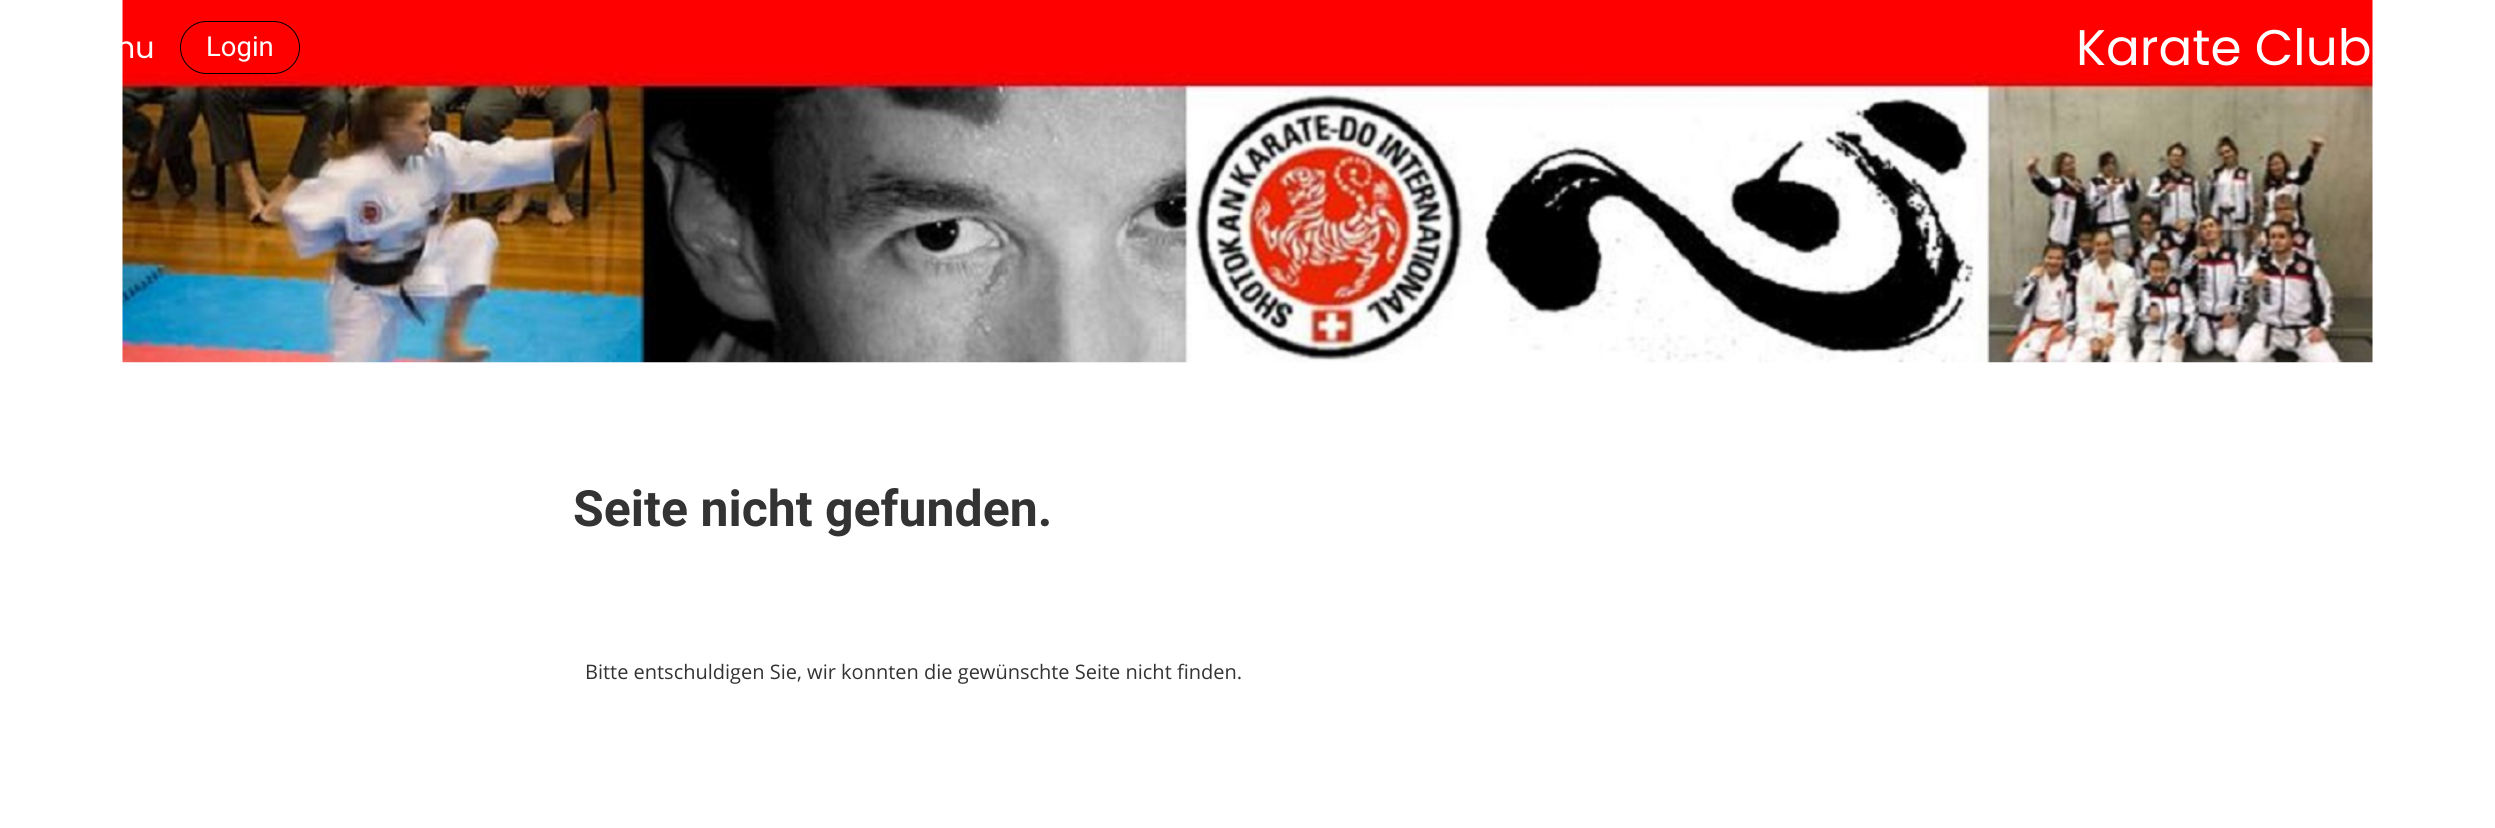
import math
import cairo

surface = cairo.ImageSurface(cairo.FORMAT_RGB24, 2495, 828)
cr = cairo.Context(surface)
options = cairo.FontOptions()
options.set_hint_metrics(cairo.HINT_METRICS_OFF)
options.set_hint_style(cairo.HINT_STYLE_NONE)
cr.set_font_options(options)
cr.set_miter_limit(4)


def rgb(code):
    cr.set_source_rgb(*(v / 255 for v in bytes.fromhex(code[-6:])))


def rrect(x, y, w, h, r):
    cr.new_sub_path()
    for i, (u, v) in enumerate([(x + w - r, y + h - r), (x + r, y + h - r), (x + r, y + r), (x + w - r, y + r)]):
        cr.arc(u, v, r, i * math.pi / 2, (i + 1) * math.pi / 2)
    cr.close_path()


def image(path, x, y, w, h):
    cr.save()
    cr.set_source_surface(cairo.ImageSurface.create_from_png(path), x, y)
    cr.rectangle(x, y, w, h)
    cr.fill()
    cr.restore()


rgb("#ffffff")
cr.paint()
image("img/1.png", 122, 0, 2251, 363)
rgb("#ff0000")
rrect(180.5, 21.5, 119, 52, 26)
cr.fill_preserve()
rgb("#000000")
cr.set_line_width(1)
cr.stroke()
cr.select_font_face("Poppins")
cr.set_font_size(30)
rgb("#ffffff")
cr.move_to(116, 58)
cr.show_text("nu")
cr.select_font_face("Roboto")
cr.set_font_size(27.5)
cr.move_to(206, 56)
cr.show_text("Login")
cr.select_font_face("Poppins")
cr.set_font_size(50)
cr.move_to(2076, 65)
cr.show_text("Karate Club")
cr.select_font_face("Roboto", cairo.FONT_SLANT_NORMAL, cairo.FONT_WEIGHT_BOLD)
rgb("#333333")
cr.move_to(573, 526)
cr.show_text("Seite nicht gefunden.")
cr.select_font_face("Open Sans")
cr.set_font_size(20)
cr.move_to(585, 679)
cr.show_text("Bitte entschuldigen Sie, wir konnten die gewünschte Seite nicht finden.")
surface.write_to_png("page.png")
